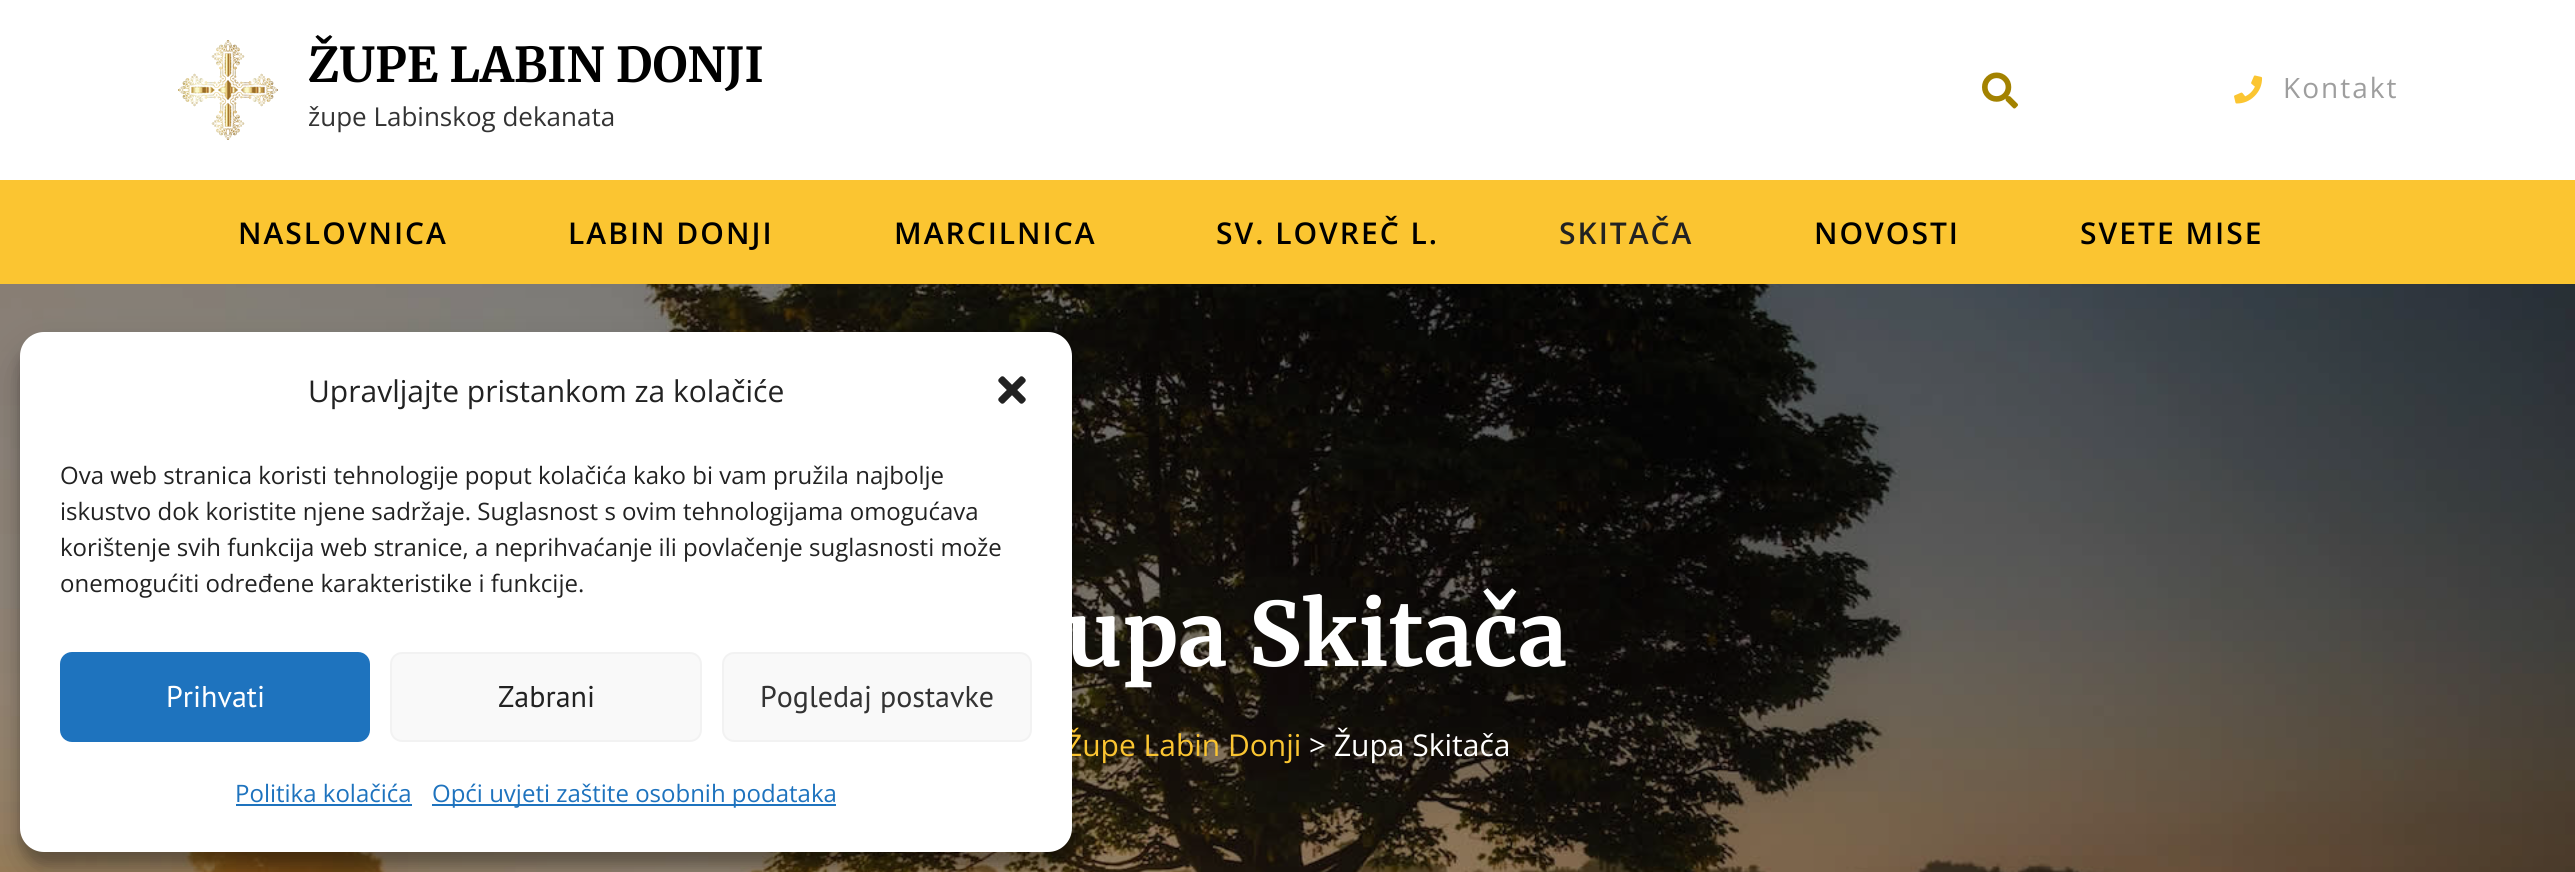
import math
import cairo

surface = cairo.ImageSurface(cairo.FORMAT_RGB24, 2575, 872)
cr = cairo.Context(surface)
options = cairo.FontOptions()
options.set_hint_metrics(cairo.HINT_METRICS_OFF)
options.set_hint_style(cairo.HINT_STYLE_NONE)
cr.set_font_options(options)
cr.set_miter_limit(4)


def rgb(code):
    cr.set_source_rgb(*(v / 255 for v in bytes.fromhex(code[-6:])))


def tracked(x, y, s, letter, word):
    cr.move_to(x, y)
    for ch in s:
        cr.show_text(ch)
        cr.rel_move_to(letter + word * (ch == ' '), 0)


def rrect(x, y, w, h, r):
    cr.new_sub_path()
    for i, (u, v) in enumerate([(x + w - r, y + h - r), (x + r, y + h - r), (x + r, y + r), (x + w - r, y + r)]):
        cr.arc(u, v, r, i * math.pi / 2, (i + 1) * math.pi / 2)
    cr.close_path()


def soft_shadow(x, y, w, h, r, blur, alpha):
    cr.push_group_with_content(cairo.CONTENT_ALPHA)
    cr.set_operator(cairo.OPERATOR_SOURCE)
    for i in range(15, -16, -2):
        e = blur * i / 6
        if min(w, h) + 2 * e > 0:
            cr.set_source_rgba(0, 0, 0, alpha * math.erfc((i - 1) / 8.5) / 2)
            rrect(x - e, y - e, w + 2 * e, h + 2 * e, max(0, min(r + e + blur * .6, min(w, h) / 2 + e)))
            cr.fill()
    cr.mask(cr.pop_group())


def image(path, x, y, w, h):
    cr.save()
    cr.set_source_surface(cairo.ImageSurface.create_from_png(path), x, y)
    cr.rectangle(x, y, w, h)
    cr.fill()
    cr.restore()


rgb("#ffffff")
cr.paint()
image("img/1.png", 178, 40, 100, 100)
image("img/2.png", 1982, 72, 36, 37)
image("img/3.png", 2234, 75, 29, 29)
rgb("#fbc531")
cr.rectangle(0, 180, 2575, 104)
cr.fill()
image("img/4.png", 0, 284, 2575, 588)
rgb("#000000")
soft_shadow(20, 344, 1052, 520, 24, 6, 0.23)
soft_shadow(20, 352, 1052, 520, 24, 20, 0.19)
cr.select_font_face("Merriweather", cairo.FONT_SLANT_NORMAL, cairo.FONT_WEIGHT_BOLD)
cr.set_font_size(48)
rgb("#000000")
cr.move_to(308, 82)
cr.show_text("ŽUPE LABIN DONJI")
cr.select_font_face("Open Sans")
cr.set_font_size(26)
rgb("#333333")
cr.move_to(308, 126)
cr.show_text("župe Labinskog dekanata")
cr.set_font_size(28)
rgb("#9e9e9e")
tracked(2283, 98, "Kontakt", 2, 0)
cr.select_font_face("Open Sans SemiBold")
cr.set_font_size(30)
rgb("#000000")
for x, y, s in [
    (238, 244, "NASLOVNICA"),
    (568, 244, "LABIN DONJI"),
    (894, 244, "MARCILNICA"),
    (1216, 244, "SV. LOVREČ L."),
]:
    tracked(x, y, s, 2, 0)
rgb("#222222")
tracked(1559, 244, "SKITAČA", 2, 0)
rgb("#000000")
tracked(1814, 244, "NOVOSTI", 2, 0)
tracked(2080, 244, "SVETE MISE", 2, 0)
cr.select_font_face("Merriweather", cairo.FONT_SLANT_NORMAL, cairo.FONT_WEIGHT_BOLD)
cr.set_font_size(88)
rgb("#ffffff")
cr.move_to(1066, 666)
cr.show_text("upa Skitača")
cr.select_font_face("Open Sans")
cr.set_font_size(30)
rgb("#fbc531")
cr.move_to(1065, 756)
cr.show_text("Župe Labin Donji")
rgb("#ffffff")
cr.move_to(1309, 756)
cr.show_text("> Župa Skitača")
rrect(20, 332, 1052, 520, 24)
cr.fill()
rgb("#222222")
cr.move_to(308, 402)
cr.show_text("Upravljajte pristankom za kolačiće")
image("img/5.png", 998, 376, 28, 28)
cr.set_font_size(24)
for x, y, s in [
    (60, 484, "Ova web stranica koristi tehnologije poput kolačića kako bi vam pružila najbolje"),
    (60, 520, "iskustvo dok koristite njene sadržaje. Suglasnost s ovim tehnologijama omogućava"),
    (60, 556, "korištenje svih funkcija web stranice, a neprihvaćanje ili povlačenje suglasnosti može"),
    (60, 592, "onemogućiti određene karakteristike i funkcije."),
]:
    cr.move_to(x, y)
    cr.show_text(s)
rgb("#1e73be")
rrect(61, 653, 308, 88, 11)
cr.fill_preserve()
cr.stroke()
cr.select_font_face("PT Sans")
cr.set_font_size(30)
rgb("#ffffff")
cr.move_to(166, 707)
cr.show_text("Prihvati")
rgb("#f9f9f9")
rrect(391, 653, 310, 88, 11)
cr.fill_preserve()
rgb("#f2f2f2")
cr.stroke()
rgb("#222222")
cr.move_to(498, 707)
cr.show_text("Zabrani")
rgb("#f9f9f9")
rrect(723, 653, 308, 88, 11)
cr.fill_preserve()
rgb("#f2f2f2")
cr.stroke()
rgb("#333333")
cr.move_to(760, 707)
cr.show_text("Pogledaj postavke")
cr.select_font_face("Open Sans")
cr.set_font_size(24)
rgb("#1e73be")
cr.move_to(235, 802)
cr.show_text("Politika kolačića")
cr.rectangle(236, 804, 176, 2)
cr.fill()
cr.rectangle(432, 804, 404, 2)
cr.fill()
cr.move_to(432, 802)
cr.show_text("Opći uvjeti zaštite osobnih podataka")
surface.write_to_png("page.png")
